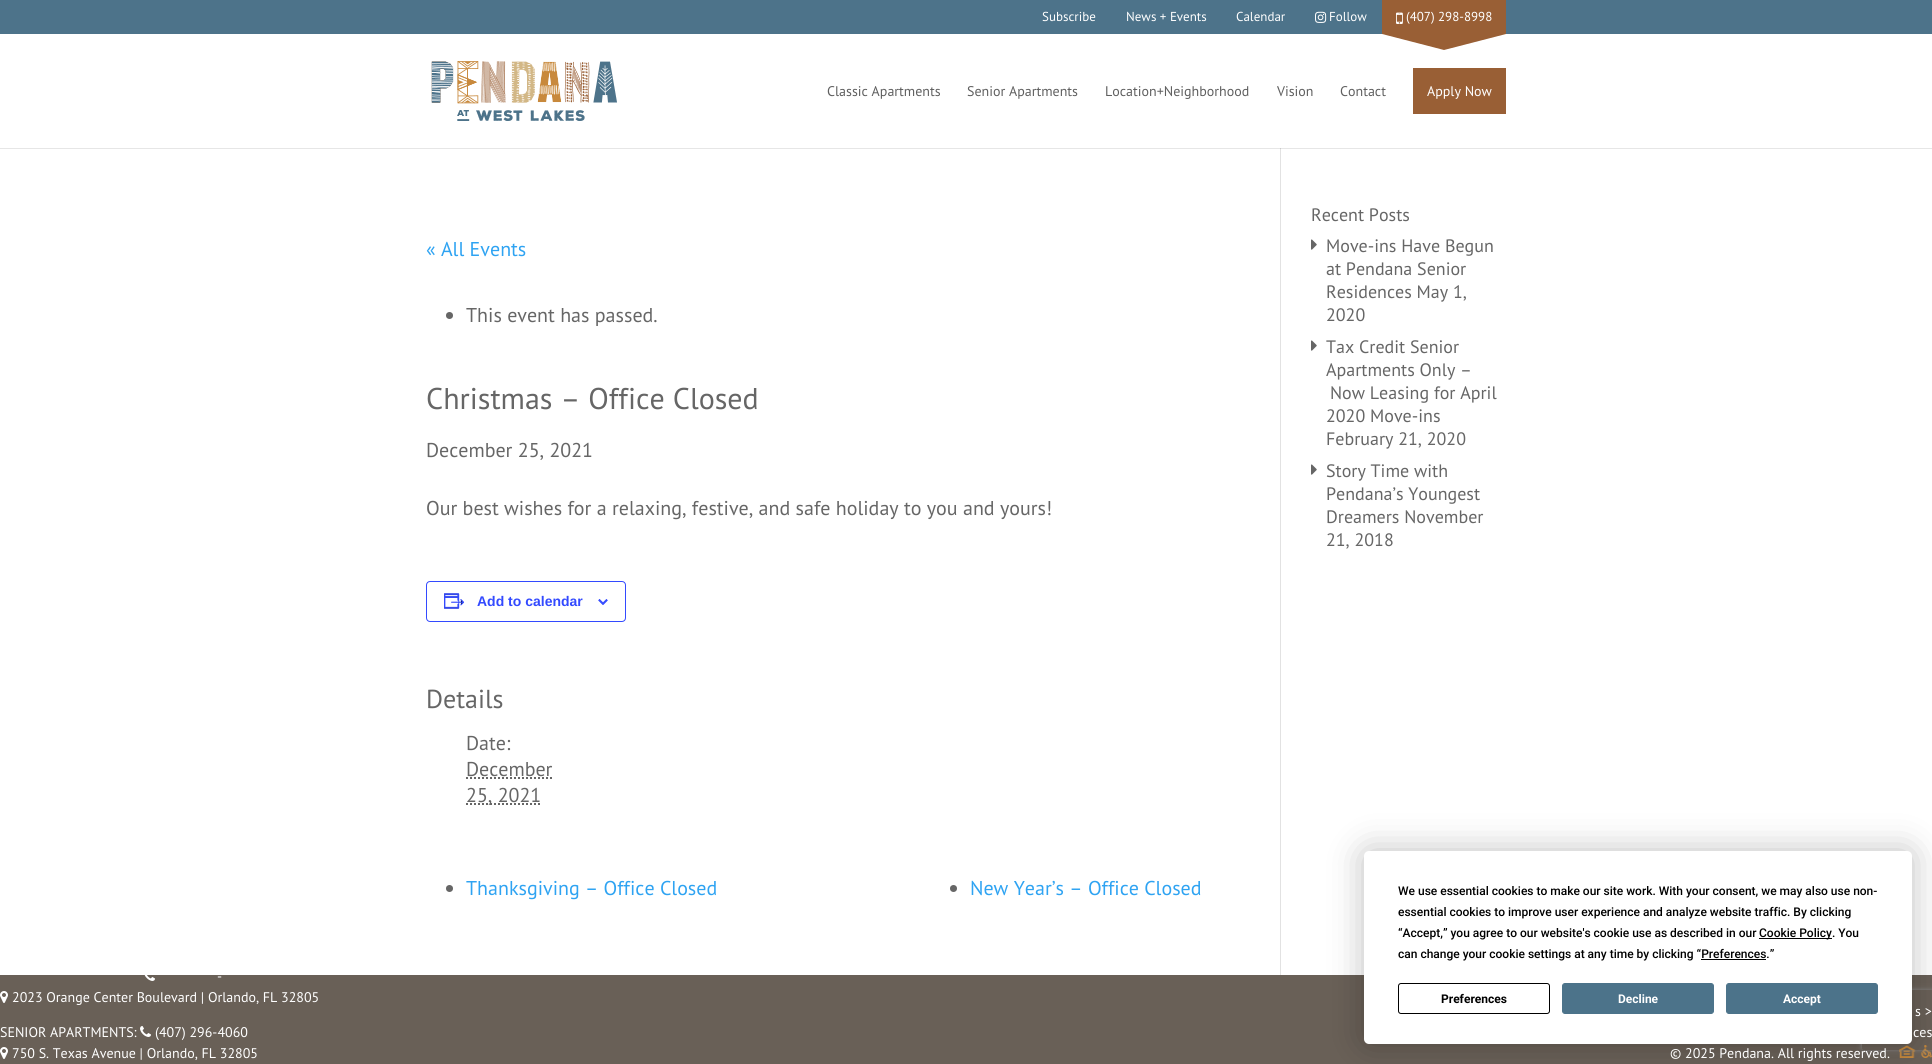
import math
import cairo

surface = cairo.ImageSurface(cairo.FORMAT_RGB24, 1932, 1064)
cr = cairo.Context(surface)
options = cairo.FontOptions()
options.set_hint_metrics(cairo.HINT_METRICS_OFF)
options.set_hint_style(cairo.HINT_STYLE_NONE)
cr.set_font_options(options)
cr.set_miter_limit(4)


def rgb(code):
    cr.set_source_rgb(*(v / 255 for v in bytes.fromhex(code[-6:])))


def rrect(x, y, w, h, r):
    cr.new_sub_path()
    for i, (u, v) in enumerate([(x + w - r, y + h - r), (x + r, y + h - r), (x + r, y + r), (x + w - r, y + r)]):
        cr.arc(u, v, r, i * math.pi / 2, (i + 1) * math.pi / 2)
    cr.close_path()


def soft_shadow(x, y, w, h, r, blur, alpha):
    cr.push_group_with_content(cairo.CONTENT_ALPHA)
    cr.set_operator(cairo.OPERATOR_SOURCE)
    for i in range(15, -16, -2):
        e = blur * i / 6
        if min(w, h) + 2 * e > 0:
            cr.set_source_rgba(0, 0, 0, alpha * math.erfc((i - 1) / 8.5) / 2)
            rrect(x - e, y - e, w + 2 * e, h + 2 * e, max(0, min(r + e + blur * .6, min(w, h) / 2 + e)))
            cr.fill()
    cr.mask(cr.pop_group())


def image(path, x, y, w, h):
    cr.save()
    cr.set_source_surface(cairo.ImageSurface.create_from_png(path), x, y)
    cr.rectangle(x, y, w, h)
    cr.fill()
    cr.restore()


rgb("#ffffff")
cr.paint()
rgb("#e6e6e6")
cr.rectangle(0, 148, 1932, 1)
cr.fill()
rgb("#4d738a")
cr.rectangle(0, 0, 1932, 34)
cr.fill()
image("img/1.png", 1315, 11, 12, 12)
rgb("#995f35")
cr.rectangle(1382, 0, 124, 34)
cr.fill()
image("img/2.png", 1396, 12, 7, 12)
cr.new_path()
cr.move_to(1382, 34)
cr.line_to(1506, 34)
cr.line_to(1444, 50)
cr.close_path()
cr.fill()
image("img/3.png", 431, 61, 186, 60)
for x, y, w, h, color in [
    (1413, 68, 93, 46, "#995f35"),
    (1280, 148, 1, 827, "#e2e2e2"),
    (1280, 148, 1, 1, "#cbcbcb"),
]:
    rgb(color)
    cr.rectangle(x, y, w, h)
    cr.fill()
rgb("#666666")
cr.arc(449.5, 315.5, 3.5, 0, 2 * math.pi)
cr.fill()
rrect(426.5, 581.5, 199, 40, 3.5)
rgb("#334aff")
cr.set_line_width(1)
cr.stroke()
image("img/4.png", 444, 593, 21, 16)
image("img/5.png", 598, 599, 10, 6)
cr.new_path()
cr.move_to(466, 778)
cr.line_to(552.5, 778)
rgb("#666666")
cr.set_line_width(2)
cr.set_dash([2, 2])
cr.stroke()
cr.new_path()
cr.move_to(466, 804)
cr.line_to(541, 804)
cr.stroke()
cr.arc(449.5, 888.5, 3.5, 0, 2 * math.pi)
cr.fill()
cr.arc(953.5, 888.5, 3.5, 0, 2 * math.pi)
cr.fill()
image("img/6.png", 1311, 239, 6, 11)
image("img/6.png", 1311, 340, 6, 11)
image("img/6.png", 1311, 464, 6, 11)
rgb("#696057")
cr.rectangle(0, 975, 1932, 89)
cr.fill()
image("img/7.png", 144, 975, 11, 6)
image("img/8.png", 0, 991, 8, 12)
image("img/9.png", 140, 1026, 11, 11)
image("img/8.png", 0, 1047, 8, 12)
image("img/10.png", 1899, 1045, 33, 13)
rgb("#000000")
soft_shadow(1364, 851, 548, 193, 5, 17.5, 0.25)
cr.save()
cr.set_fill_rule(cairo.FILL_RULE_EVEN_ODD)
cr.new_path()
cr.move_to(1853, 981)
cr.line_to(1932, 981)
cr.line_to(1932, 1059)
cr.line_to(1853, 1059)
cr.close_path()
cr.move_to(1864, 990)
cr.line_to(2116, 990)
cr.curve_to(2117, 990, 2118, 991, 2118, 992)
cr.line_to(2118, 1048)
cr.curve_to(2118, 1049, 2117, 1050, 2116, 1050)
cr.line_to(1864, 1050)
cr.curve_to(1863, 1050, 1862, 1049, 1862, 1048)
cr.line_to(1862, 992)
cr.curve_to(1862, 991, 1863, 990, 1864, 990)
cr.close_path()
cr.clip()
rgb("#808080")
soft_shadow(1862, 990, 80, 60, 2, 2.5, 1)
cr.restore()
rgb("#ffffff")
rrect(1364, 851, 548, 193, 5)
cr.fill()
rgb("#000000")
cr.rectangle(1759, 938, 73, 1)
cr.fill()
cr.rectangle(1701, 959, 65, 1)
cr.fill()
rrect(1398.5, 983.5, 151, 30, 2.5)
cr.set_line_width(1)
cr.set_dash([])
cr.stroke()
rgb("#4c738a")
rrect(1562.5, 983.5, 151, 30, 2.5)
cr.fill_preserve()
cr.stroke()
rrect(1726.5, 983.5, 151, 30, 2.5)
cr.fill_preserve()
cr.stroke()
cr.select_font_face("PT Sans")
cr.set_font_size(13)
rgb("#ffffff")
for x, y, s in [
    (1042, 21, "Subscribe"),
    (1126, 21, "News + Events"),
    (1236, 21, "Calendar"),
    (1329, 21, "Follow"),
    (1406, 21, "(407) 298-8998"),
]:
    cr.move_to(x, y)
    cr.show_text(s)
cr.set_font_size(14)
rgb("#5f5f5f")
for x, y, s in [
    (827, 96, "Classic Apartments"),
    (967, 96, "Senior Apartments"),
    (1105, 96, "Location+Neighborhood"),
    (1277, 96, "Vision"),
    (1340, 96, "Contact"),
]:
    cr.move_to(x, y)
    cr.show_text(s)
rgb("#ffffff")
cr.move_to(1427, 96)
cr.show_text("Apply Now")
cr.set_font_size(20)
rgb("#2ea3f2")
cr.move_to(426, 256)
cr.show_text("« All Events")
rgb("#666666")
cr.move_to(466, 322)
cr.show_text("This event has passed.")
cr.set_font_size(30)
cr.move_to(426, 409)
cr.show_text("Christmas – Office Closed")
cr.set_font_size(20)
cr.move_to(426, 457)
cr.show_text("December 25, 2021")
cr.move_to(426, 515)
cr.show_text("Our best wishes for a relaxing, festive, and safe holiday to you and yours!")
cr.select_font_face("Liberation Sans", cairo.FONT_SLANT_NORMAL, cairo.FONT_WEIGHT_BOLD)
cr.set_font_size(14)
rgb("#334aff")
cr.move_to(477, 606)
cr.show_text("Add to calendar")
cr.select_font_face("PT Sans")
cr.set_font_size(26)
rgb("#666666")
cr.move_to(426, 708)
cr.show_text("Details")
cr.set_font_size(20)
for x, y, s in [
    (466, 750, "Date:"),
    (466, 776, "December"),
    (466, 802, "25, 2021"),
]:
    cr.move_to(x, y)
    cr.show_text(s)
rgb("#2ea3f2")
cr.move_to(466, 895)
cr.show_text("Thanksgiving – Office Closed")
cr.move_to(970, 895)
cr.show_text("New Year’s – Office Closed")
cr.set_font_size(18)
rgb("#666666")
for x, y, s in [
    (1311, 221, "Recent Posts"),
    (1326, 252, "Move-ins Have Begun"),
    (1326, 275, "at Pendana Senior"),
    (1326, 298, "Residences May 1,"),
    (1326, 321, "2020"),
    (1326, 353, "Tax Credit Senior"),
    (1326, 376, "Apartments Only –"),
    (1330, 399, "Now Leasing for April"),
    (1326, 422, "2020 Move-ins"),
    (1326, 445, "February 21, 2020"),
    (1326, 477, "Story Time with"),
    (1326, 500, "Pendana’s Youngest"),
    (1326, 523, "Dreamers November"),
    (1326, 546, "21, 2018"),
]:
    cr.move_to(x, y)
    cr.show_text(s)
cr.set_font_size(14)
rgb("#ffffff")
for x, y, s in [
    (217, 981, "-"),
    (12, 1002, "2023 Orange Center Boulevard | Orlando, FL 32805"),
    (0, 1037, "SENIOR APARTMENTS:"),
    (155, 1037, "(407) 296-4060"),
    (12, 1058, "750 S. Texas Avenue | Orlando, FL 32805"),
    (1915, 1016, "s >"),
    (1913, 1037, "ces"),
    (1670, 1058, "© 2025 Pendana. All rights reserved."),
]:
    cr.move_to(x, y)
    cr.show_text(s)
cr.select_font_face("Roboto Medium")
cr.set_font_size(12)
rgb("#000000")
for x, y, s in [
    (1398, 895, "We use essential cookies to make our site work. With your consent, we may also use non-"),
    (1398, 916, "essential cookies to improve user experience and analyze website traffic. By clicking"),
    (1398, 937, "“Accept,” you agree to our website's cookie use as described in our"),
    (1759, 937, "Cookie Policy. You"),
    (1398, 958, "can change your cookie settings at any time by clicking “Preferences.”"),
]:
    cr.move_to(x, y)
    cr.show_text(s)
cr.select_font_face("Roboto", cairo.FONT_SLANT_NORMAL, cairo.FONT_WEIGHT_BOLD)
cr.move_to(1441, 1003)
cr.show_text("Preferences")
rgb("#ffffff")
cr.move_to(1618, 1003)
cr.show_text("Decline")
cr.move_to(1783, 1003)
cr.show_text("Accept")
surface.write_to_png("page.png")
